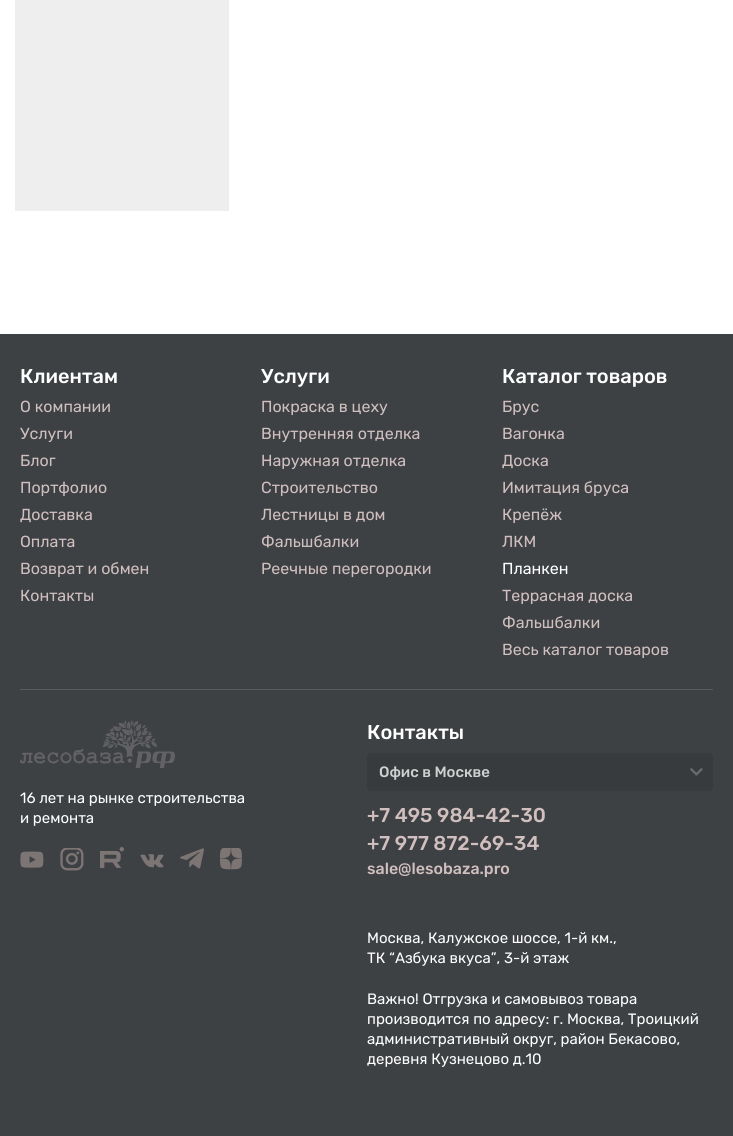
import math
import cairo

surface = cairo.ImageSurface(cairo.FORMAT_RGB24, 733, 1136)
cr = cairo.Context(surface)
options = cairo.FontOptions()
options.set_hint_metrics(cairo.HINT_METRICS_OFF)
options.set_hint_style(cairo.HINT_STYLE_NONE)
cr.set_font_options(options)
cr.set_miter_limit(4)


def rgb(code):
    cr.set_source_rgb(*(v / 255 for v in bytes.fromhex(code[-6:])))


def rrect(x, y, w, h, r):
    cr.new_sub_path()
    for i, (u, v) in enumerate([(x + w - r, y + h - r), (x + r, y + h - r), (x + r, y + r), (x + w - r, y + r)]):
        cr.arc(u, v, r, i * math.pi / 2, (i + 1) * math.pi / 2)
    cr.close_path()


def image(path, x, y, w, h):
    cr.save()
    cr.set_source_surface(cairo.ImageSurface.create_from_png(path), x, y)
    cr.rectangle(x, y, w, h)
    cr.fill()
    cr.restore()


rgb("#ffffff")
cr.paint()
for x, y, w, h, color in [
    (15, 0, 214, 211, "#eeeeee"),
    (0, 334, 733, 802, "#3d4144"),
    (20, 689, 693, 1, "#565b5f"),
]:
    rgb(color)
    cr.rectangle(x, y, w, h)
    cr.fill()
image("img/1.png", 20, 720, 155, 48)
image("img/2.png", 20, 851, 24, 17)
image("img/3.png", 60, 848, 24, 23)
image("img/4.png", 100, 847, 24, 21)
image("img/5.png", 140, 854, 24, 14)
image("img/6.png", 180, 848, 24, 21)
image("img/7.png", 220, 848, 22, 22)
rgb("#373b3d")
rrect(367, 753, 346, 38, 4)
cr.fill()
image("img/8.png", 690, 768, 13, 8)
cr.select_font_face("Rubik Medium")
cr.set_font_size(20)
rgb("#ffffff")
cr.move_to(20, 383)
cr.show_text("Клиентам")
cr.select_font_face("Rubik")
cr.set_font_size(16)
rgb("#d1bfbf")
for x, y, s in [
    (20, 412, "О компании"),
    (20, 439, "Услуги"),
    (20, 466, "Блог"),
    (20, 493, "Портфолио"),
    (20, 520, "Доставка"),
    (20, 547, "Оплата"),
    (20, 574, "Возврат и обмен"),
    (20, 601, "Контакты"),
]:
    cr.move_to(x, y)
    cr.show_text(s)
cr.select_font_face("Rubik Medium")
cr.set_font_size(20)
rgb("#ffffff")
cr.move_to(261, 383)
cr.show_text("Услуги")
cr.select_font_face("Rubik")
cr.set_font_size(16)
rgb("#d1bfbf")
for x, y, s in [
    (261, 412, "Покраска в цеху"),
    (261, 439, "Внутренняя отделка"),
    (261, 466, "Наружная отделка"),
    (261, 493, "Строительство"),
    (261, 520, "Лестницы в дом"),
    (261, 547, "Фальшбалки"),
    (261, 574, "Реечные перегородки"),
]:
    cr.move_to(x, y)
    cr.show_text(s)
cr.select_font_face("Rubik Medium")
cr.set_font_size(20)
rgb("#ffffff")
cr.move_to(502, 383)
cr.show_text("Каталог товаров")
cr.select_font_face("Rubik")
cr.set_font_size(16)
rgb("#d1bfbf")
for x, y, s in [
    (502, 412, "Брус"),
    (502, 439, "Вагонка"),
    (502, 466, "Доска"),
    (502, 493, "Имитация бруса"),
    (502, 520, "Крепёж"),
    (502, 547, "ЛКМ"),
]:
    cr.move_to(x, y)
    cr.show_text(s)
rgb("#ffffff")
cr.move_to(502, 574)
cr.show_text("Планкен")
rgb("#d1bfbf")
for x, y, s in [
    (502, 601, "Террасная доска"),
    (502, 628, "Фальшбалки"),
    (502, 655, "Весь каталог товаров"),
]:
    cr.move_to(x, y)
    cr.show_text(s)
cr.set_font_size(15)
rgb("#ffffff")
cr.move_to(20, 803)
cr.show_text("16 лет на рынке строительства")
cr.move_to(20, 823)
cr.show_text("и ремонта")
cr.select_font_face("Rubik Medium")
cr.set_font_size(20)
cr.move_to(367, 739)
cr.show_text("Контакты")
cr.set_font_size(15)
rgb("#cfd0d0")
cr.move_to(379, 777)
cr.show_text("Офис в Москве")
cr.set_font_size(20)
rgb("#d1bfbf")
cr.move_to(367, 822)
cr.show_text("+7 495 984-42-30")
cr.move_to(367, 850)
cr.show_text("+7 977 872-69-34")
cr.set_font_size(16)
cr.move_to(367, 874)
cr.show_text("sale@lesobaza.pro")
cr.select_font_face("Rubik")
cr.set_font_size(15)
rgb("#ffffff")
for x, y, s in [
    (367, 943, "Москва, Калужское шоссе, 1-й км.,"),
    (367, 963, "ТК “Азбука вкуса”, 3-й этаж"),
    (367, 1004, "Важно! Отгрузка и самовывоз товара"),
    (367, 1024, "производится по адресу: г. Москва, Троицкий"),
    (367, 1044, "административный округ, район Бекасово,"),
    (367, 1064, "деревня Кузнецово д.10"),
]:
    cr.move_to(x, y)
    cr.show_text(s)
surface.write_to_png("page.png")
